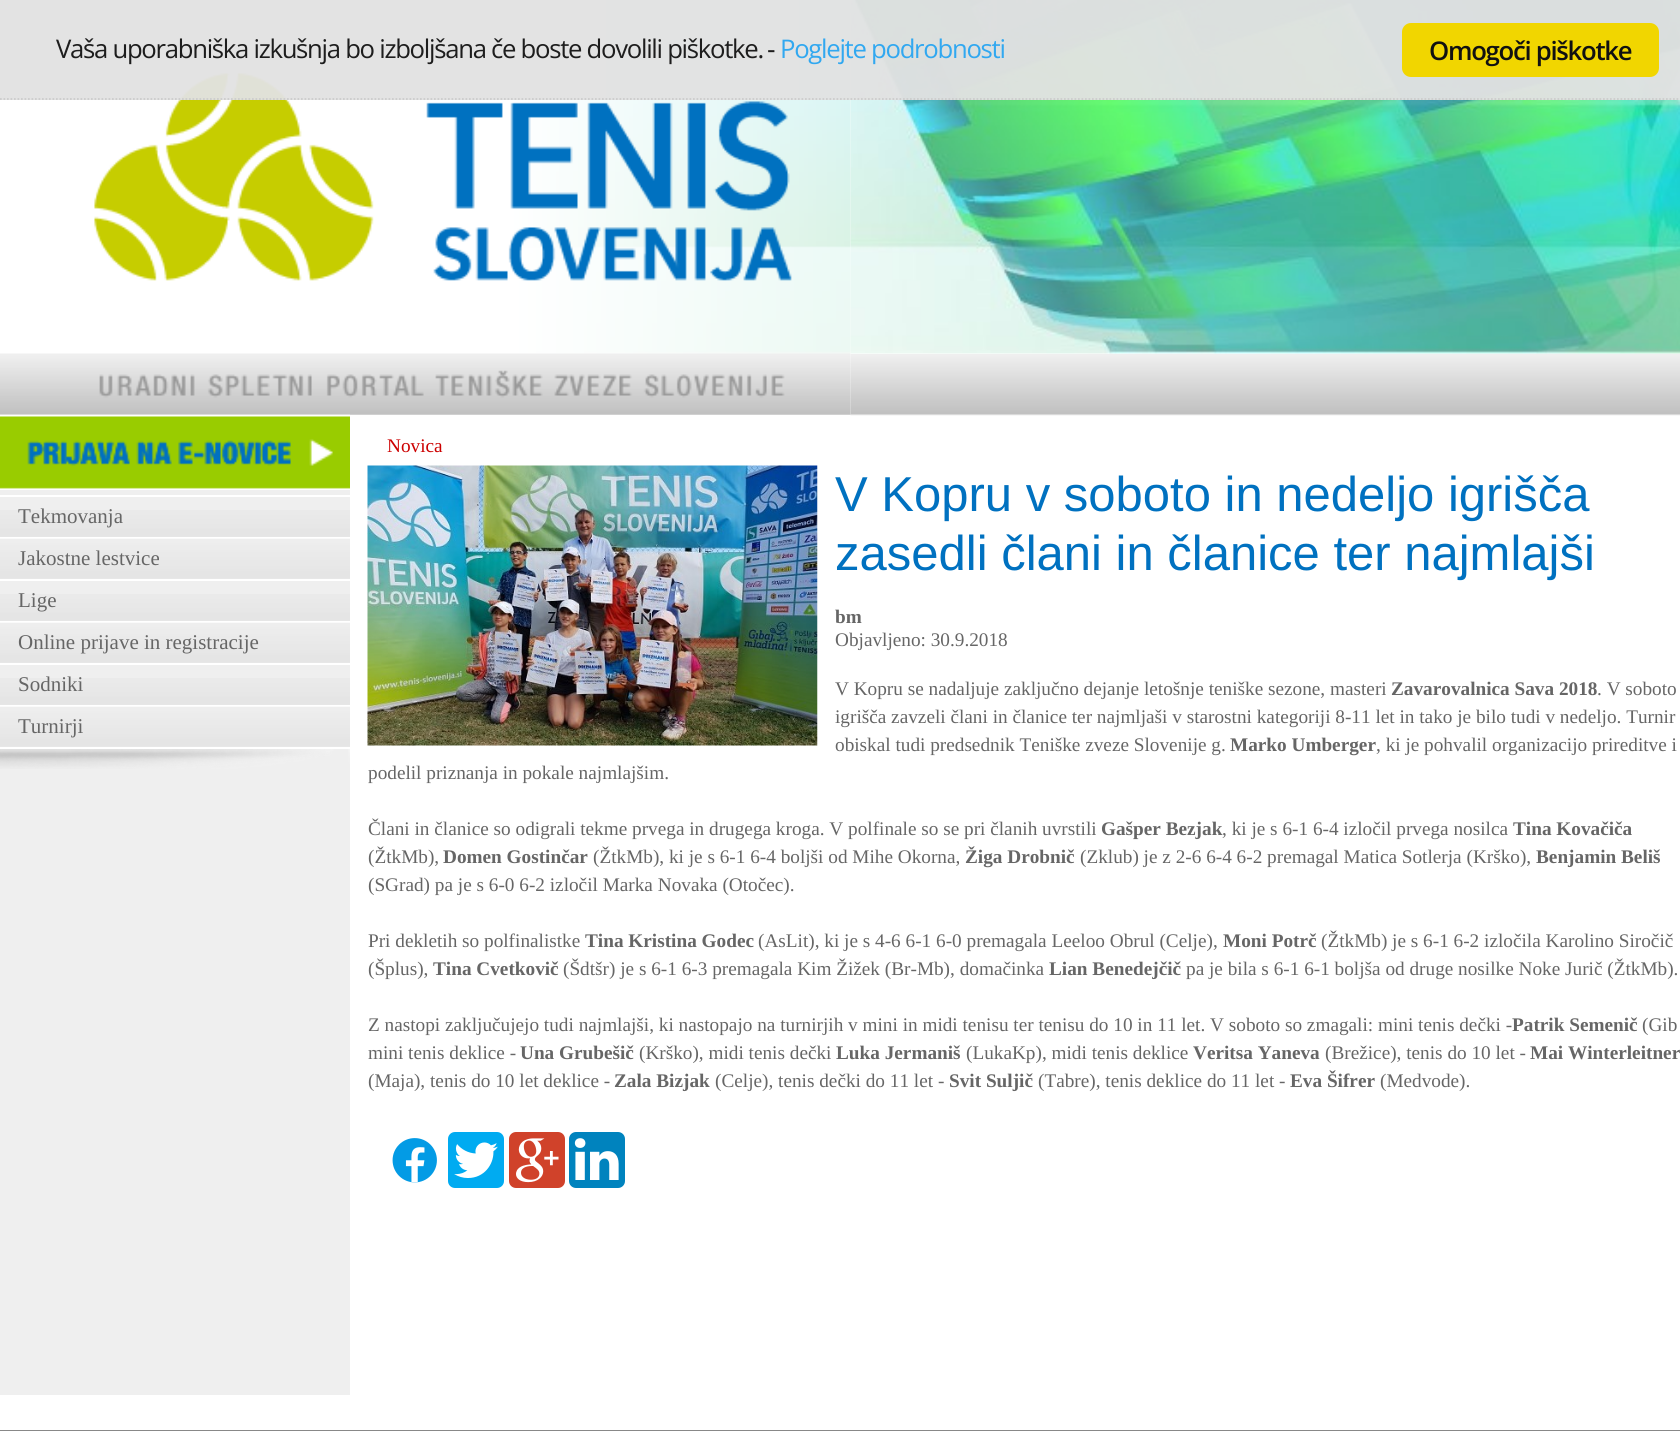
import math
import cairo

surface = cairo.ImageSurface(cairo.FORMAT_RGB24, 1680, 1431)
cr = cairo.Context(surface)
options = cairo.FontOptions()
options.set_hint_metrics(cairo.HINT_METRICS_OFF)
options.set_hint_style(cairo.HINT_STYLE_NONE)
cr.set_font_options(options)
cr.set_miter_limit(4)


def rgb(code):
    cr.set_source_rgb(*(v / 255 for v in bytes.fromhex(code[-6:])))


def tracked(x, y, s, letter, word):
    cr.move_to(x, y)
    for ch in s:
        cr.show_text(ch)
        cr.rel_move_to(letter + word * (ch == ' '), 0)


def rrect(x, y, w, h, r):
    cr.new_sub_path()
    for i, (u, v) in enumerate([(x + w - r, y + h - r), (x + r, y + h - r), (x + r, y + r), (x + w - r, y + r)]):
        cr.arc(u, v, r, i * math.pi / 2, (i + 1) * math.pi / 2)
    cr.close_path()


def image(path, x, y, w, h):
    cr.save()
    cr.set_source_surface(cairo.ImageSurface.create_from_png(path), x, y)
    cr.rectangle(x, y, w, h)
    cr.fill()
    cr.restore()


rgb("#ffffff")
cr.paint()
image("img/1.png", 0, 0, 851, 415)
image("img/2.png", 850, 0, 830, 354)
cr.set_source_rgba(0.886, 0.886, 0.886, 0.95)
cr.rectangle(0, 0, 1680, 100)
cr.fill()
cr.new_path()
cr.move_to(0, 99)
cr.line_to(1680, 99)
rgb("#cccccc")
cr.set_line_width(1.8)
cr.set_dash([1.75, 1.75])
cr.stroke()
rgb("#f1d600")
rrect(1402, 23, 257, 54, 9)
cr.fill()
image("img/3.png", 850, 354, 830, 62)
rgb("#efefef")
cr.rectangle(0, 490, 350, 905)
cr.fill()
image("img/4.png", 0, 414, 350, 76)
image("img/5.png", 0, 749, 350, 20)
rgb("#ffffff")
cr.rectangle(0, 495, 350, 2)
cr.fill()
image("img/6.png", 0, 510, 350, 27)
cr.rectangle(0, 537, 350, 2)
cr.fill()
image("img/7.png", 0, 538, 350, 41)
cr.rectangle(0, 579, 350, 2)
cr.fill()
image("img/6.png", 0, 594, 350, 27)
cr.rectangle(0, 621, 350, 2)
cr.fill()
image("img/7.png", 0, 622, 350, 41)
cr.rectangle(0, 663, 350, 2)
cr.fill()
image("img/6.png", 0, 678, 350, 27)
cr.rectangle(0, 705, 350, 2)
cr.fill()
image("img/7.png", 0, 706, 350, 41)
cr.rectangle(0, 747, 350, 2)
cr.fill()
image("img/8.png", 367, 465, 451, 281)
image("img/9.png", 392, 1138, 45, 45)
image("img/10.png", 448, 1132, 56, 56)
image("img/11.png", 509, 1132, 56, 56)
image("img/12.png", 569, 1132, 56, 56)
rgb("#888888")
cr.rectangle(0, 1430, 1680, 1)
cr.fill()
cr.select_font_face("Open Sans")
cr.set_font_size(25.7)
rgb("#1d1d1d")
tracked(56, 58, "Vaša uporabniška izkušnja bo izboljšana če boste dovolili piškotke.", -1.28, 0)
cr.select_font_face("Liberation Sans")
tracked(767, 58, "-", -1.28, 0)
cr.select_font_face("Open Sans")
rgb("#31a8f0")
tracked(780, 58, "Poglejte podrobnosti", -1.28, 0)
cr.select_font_face("Open Sans SemiBold")
rgb("#111111")
tracked(1429, 60, "Omogoči piškotke", -1.28, 0)
cr.select_font_face("Liberation Serif")
cr.set_font_size(21)
rgb("#666666")
for x, y, s in [
    (18, 523, "Tekmovanja"),
    (18, 565, "Jakostne lestvice"),
    (18, 607, "Lige"),
    (18, 649, "Online prijave in registracije"),
    (18, 691, "Sodniki"),
    (18, 733, "Turnirji"),
]:
    cr.move_to(x, y)
    cr.show_text(s)
cr.set_font_size(19.25)
rgb("#cc0000")
cr.move_to(387, 452)
cr.show_text("Novica")
cr.select_font_face("Liberation Sans")
cr.set_font_size(49)
rgb("#0071c0")
cr.move_to(835, 511)
cr.show_text("V Kopru v soboto in nedeljo igrišča")
cr.move_to(835, 570)
cr.show_text("zasedli člani in članice ter najmlajši")
cr.select_font_face("Liberation Serif", cairo.FONT_SLANT_NORMAL, cairo.FONT_WEIGHT_BOLD)
cr.set_font_size(19.25)
rgb("#666666")
cr.move_to(835, 623)
cr.show_text("bm")
cr.select_font_face("Liberation Serif")
cr.move_to(835, 646)
cr.show_text("Objavljeno: 30.9.2018")
cr.move_to(835, 695)
cr.show_text("V Kopru se nadaljuje zaključno dejanje letošnje teniške sezone, masteri")
cr.select_font_face("Liberation Serif", cairo.FONT_SLANT_NORMAL, cairo.FONT_WEIGHT_BOLD)
cr.move_to(1391, 695)
cr.show_text("Zavarovalnica Sava 2018")
cr.select_font_face("Liberation Serif")
for x, y, s in [
    (1597, 695, ". V soboto"),
    (835, 723, "igrišča zavzeli člani in članice ter najmljaši v starostni kategoriji 8-11 let in tako je bilo tudi v nedeljo. Turnir"),
    (835, 751, "obiskal tudi predsednik Teniške zveze Slovenije g."),
]:
    cr.move_to(x, y)
    cr.show_text(s)
cr.select_font_face("Liberation Serif", cairo.FONT_SLANT_NORMAL, cairo.FONT_WEIGHT_BOLD)
cr.move_to(1230, 751)
cr.show_text("Marko Umberger")
cr.select_font_face("Liberation Serif")
for x, y, s in [
    (1376, 751, ", ki je pohvalil organizacijo prireditve i"),
    (368, 779, "podelil priznanja in pokale najmlajšim."),
    (368, 835, "Člani in članice so odigrali tekme prvega in drugega kroga. V polfinale so se pri članih uvrstili"),
]:
    cr.move_to(x, y)
    cr.show_text(s)
cr.select_font_face("Liberation Serif", cairo.FONT_SLANT_NORMAL, cairo.FONT_WEIGHT_BOLD)
cr.move_to(1101, 835)
cr.show_text("Gašper Bezjak")
cr.select_font_face("Liberation Serif")
cr.move_to(1222, 835)
cr.show_text(", ki je s 6-1 6-4 izločil prvega nosilca")
cr.select_font_face("Liberation Serif", cairo.FONT_SLANT_NORMAL, cairo.FONT_WEIGHT_BOLD)
cr.move_to(1513, 835)
cr.show_text("Tina Kovačiča")
cr.select_font_face("Liberation Serif")
cr.move_to(368, 863)
cr.show_text("(ŽtkMb),")
cr.select_font_face("Liberation Serif", cairo.FONT_SLANT_NORMAL, cairo.FONT_WEIGHT_BOLD)
cr.move_to(443, 863)
cr.show_text("Domen Gostinčar")
cr.select_font_face("Liberation Serif")
cr.move_to(593, 863)
cr.show_text("(ŽtkMb), ki je s 6-1 6-4 boljši od Mihe Okorna,")
cr.select_font_face("Liberation Serif", cairo.FONT_SLANT_NORMAL, cairo.FONT_WEIGHT_BOLD)
cr.move_to(965, 863)
cr.show_text("Žiga Drobnič")
cr.select_font_face("Liberation Serif")
cr.move_to(1080, 863)
cr.show_text("(Zklub) je z 2-6 6-4 6-2 premagal Matica Sotlerja (Krško),")
cr.select_font_face("Liberation Serif", cairo.FONT_SLANT_NORMAL, cairo.FONT_WEIGHT_BOLD)
cr.move_to(1536, 863)
cr.show_text("Benjamin Beliš")
cr.select_font_face("Liberation Serif")
cr.move_to(368, 891)
cr.show_text("(SGrad) pa je s 6-0 6-2 izločil Marka Novaka (Otočec).")
cr.move_to(368, 947)
cr.show_text("Pri dekletih so polfinalistke")
cr.select_font_face("Liberation Serif", cairo.FONT_SLANT_NORMAL, cairo.FONT_WEIGHT_BOLD)
cr.move_to(585, 947)
cr.show_text("Tina Kristina Godec")
cr.select_font_face("Liberation Serif")
cr.move_to(758, 947)
cr.show_text("(AsLit), ki je s 4-6 6-1 6-0 premagala Leeloo Obrul (Celje),")
cr.select_font_face("Liberation Serif", cairo.FONT_SLANT_NORMAL, cairo.FONT_WEIGHT_BOLD)
cr.move_to(1223, 947)
cr.show_text("Moni Potrč")
cr.select_font_face("Liberation Serif")
cr.move_to(1321, 947)
cr.show_text("(ŽtkMb) je s 6-1 6-2 izločila Karolino Siročič")
cr.move_to(368, 975)
cr.show_text("(Šplus),")
cr.select_font_face("Liberation Serif", cairo.FONT_SLANT_NORMAL, cairo.FONT_WEIGHT_BOLD)
cr.move_to(433, 975)
cr.show_text("Tina Cvetkovič")
cr.select_font_face("Liberation Serif")
cr.move_to(563, 975)
cr.show_text("(Šdtšr) je s 6-1 6-3 premagala Kim Žižek (Br-Mb), domačinka")
cr.select_font_face("Liberation Serif", cairo.FONT_SLANT_NORMAL, cairo.FONT_WEIGHT_BOLD)
cr.move_to(1049, 975)
cr.show_text("Lian Benedejčič")
cr.select_font_face("Liberation Serif")
cr.move_to(1186, 975)
cr.show_text("pa je bila s 6-1 6-1 boljša od druge nosilke Noke Jurič (ŽtkMb).")
cr.move_to(368, 1031)
cr.show_text("Z nastopi zaključujejo tudi najmlajši, ki nastopajo na turnirjih v mini in midi tenisu ter tenisu do 10 in 11 let. V soboto so zmagali: mini tenis dečki -")
cr.select_font_face("Liberation Serif", cairo.FONT_SLANT_NORMAL, cairo.FONT_WEIGHT_BOLD)
cr.move_to(1512, 1031)
cr.show_text("Patrik Semenič")
cr.select_font_face("Liberation Serif")
cr.move_to(1642, 1031)
cr.show_text("(Gib")
cr.move_to(368, 1059)
cr.show_text("mini tenis deklice -")
cr.select_font_face("Liberation Serif", cairo.FONT_SLANT_NORMAL, cairo.FONT_WEIGHT_BOLD)
cr.move_to(520, 1059)
cr.show_text("Una Grubešič")
cr.select_font_face("Liberation Serif")
cr.move_to(639, 1059)
cr.show_text("(Krško), midi tenis dečki")
cr.select_font_face("Liberation Serif", cairo.FONT_SLANT_NORMAL, cairo.FONT_WEIGHT_BOLD)
cr.move_to(836, 1059)
cr.show_text("Luka Jermaniš")
cr.select_font_face("Liberation Serif")
cr.move_to(966, 1059)
cr.show_text("(LukaKp), midi tenis deklice")
cr.select_font_face("Liberation Serif", cairo.FONT_SLANT_NORMAL, cairo.FONT_WEIGHT_BOLD)
cr.move_to(1193, 1059)
cr.show_text("Veritsa Yaneva")
cr.select_font_face("Liberation Serif")
cr.move_to(1325, 1059)
cr.show_text("(Brežice), tenis do 10 let -")
cr.select_font_face("Liberation Serif", cairo.FONT_SLANT_NORMAL, cairo.FONT_WEIGHT_BOLD)
cr.move_to(1530, 1059)
cr.show_text("Mai Winterleitner")
cr.select_font_face("Liberation Serif")
cr.move_to(368, 1087)
cr.show_text("(Maja), tenis do 10 let deklice -")
cr.select_font_face("Liberation Serif", cairo.FONT_SLANT_NORMAL, cairo.FONT_WEIGHT_BOLD)
cr.move_to(614, 1087)
cr.show_text("Zala Bizjak")
cr.select_font_face("Liberation Serif")
cr.move_to(715, 1087)
cr.show_text("(Celje), tenis dečki do 11 let -")
cr.select_font_face("Liberation Serif", cairo.FONT_SLANT_NORMAL, cairo.FONT_WEIGHT_BOLD)
cr.move_to(949, 1087)
cr.show_text("Svit Suljič")
cr.select_font_face("Liberation Serif")
cr.move_to(1038, 1087)
cr.show_text("(Tabre), tenis deklice do 11 let -")
cr.select_font_face("Liberation Serif", cairo.FONT_SLANT_NORMAL, cairo.FONT_WEIGHT_BOLD)
cr.move_to(1290, 1087)
cr.show_text("Eva Šifrer")
cr.select_font_face("Liberation Serif")
cr.move_to(1380, 1087)
cr.show_text("(Medvode).")
surface.write_to_png("page.png")
